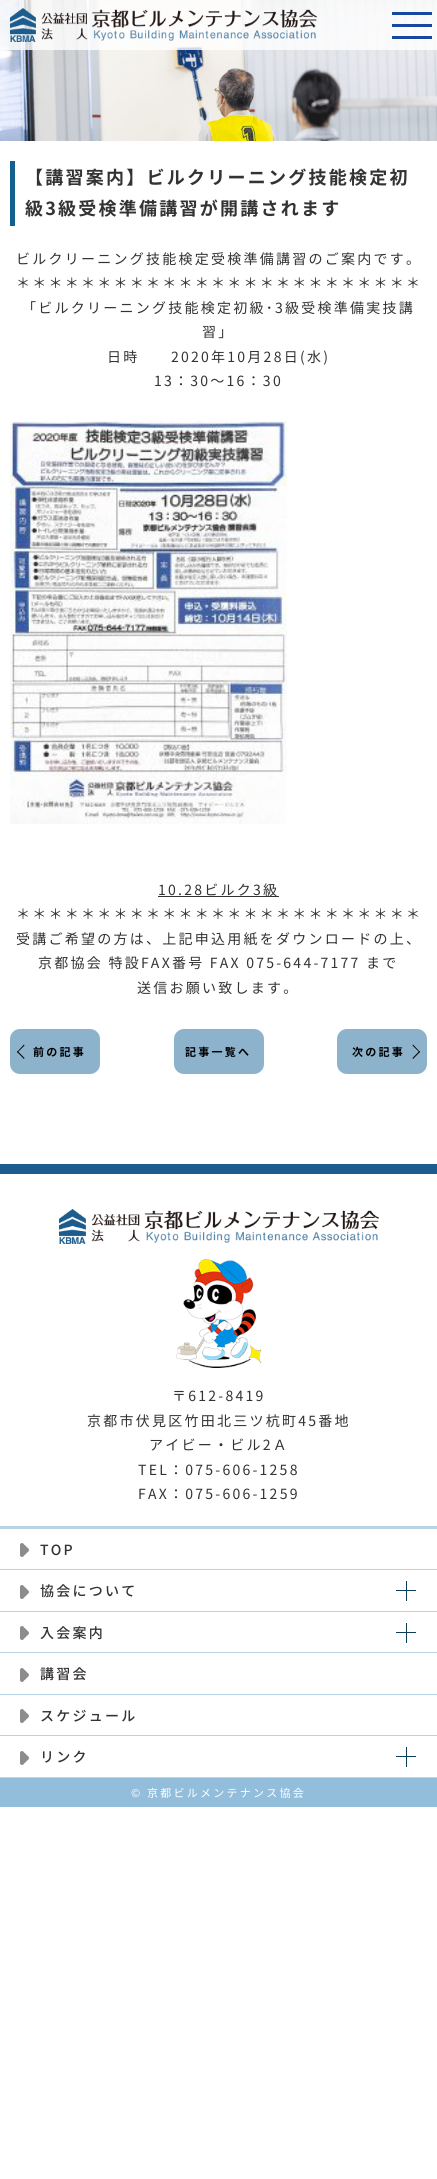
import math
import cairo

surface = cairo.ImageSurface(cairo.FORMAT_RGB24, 437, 2179)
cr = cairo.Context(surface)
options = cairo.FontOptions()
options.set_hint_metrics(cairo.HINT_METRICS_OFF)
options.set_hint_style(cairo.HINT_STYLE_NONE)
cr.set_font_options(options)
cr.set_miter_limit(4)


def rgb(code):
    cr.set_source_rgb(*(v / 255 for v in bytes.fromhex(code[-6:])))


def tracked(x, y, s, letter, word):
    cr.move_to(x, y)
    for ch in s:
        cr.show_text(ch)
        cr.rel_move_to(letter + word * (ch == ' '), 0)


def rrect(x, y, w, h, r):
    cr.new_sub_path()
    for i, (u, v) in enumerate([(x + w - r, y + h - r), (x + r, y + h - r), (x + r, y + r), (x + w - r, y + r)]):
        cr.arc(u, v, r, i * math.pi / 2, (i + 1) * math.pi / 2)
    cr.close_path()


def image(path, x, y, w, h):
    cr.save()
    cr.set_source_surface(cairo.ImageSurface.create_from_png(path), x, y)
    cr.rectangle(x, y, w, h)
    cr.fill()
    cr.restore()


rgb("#ffffff")
cr.paint()
image("img/1.png", 0, 0, 437, 141)
cr.set_source_rgba(1, 1, 1, 0.8)
cr.rectangle(0, 0, 437, 50)
cr.fill()
image("img/2.png", 10, 8, 307, 34)
for x, y, w, h, color in [
    (392, 12, 40, 3, "#16489f"),
    (392, 24, 40, 3, "#16489f"),
    (392, 36, 40, 3, "#16489f"),
    (10, 161, 5, 65, "#135f8e"),
]:
    rgb(color)
    cr.rectangle(x, y, w, h)
    cr.fill()
image("img/3.png", 10, 421, 277, 403)
rgb("#333333")
cr.rectangle(158, 896, 121, 1)
cr.fill()
rgb("#8db2cc")
rrect(10, 1029, 90, 45, 10)
cr.fill()
rgb("#000000")
cr.new_path()
cr.move_to(24, 1059)
cr.line_to(17, 1052)
cr.line_to(17.5, 1051)
cr.line_to(24.5, 1058)
cr.close_path()
cr.fill()
cr.new_path()
cr.move_to(17.5, 1052.5)
cr.line_to(17, 1052)
cr.line_to(24, 1044.5)
cr.line_to(24.5, 1045.5)
cr.close_path()
cr.fill()
rgb("#8db2cc")
rrect(174, 1029, 90, 45, 10)
cr.fill()
rrect(337, 1029, 90, 45, 10)
cr.fill()
rgb("#000000")
cr.new_path()
cr.move_to(413, 1044.5)
cr.line_to(420, 1052)
cr.line_to(419.5, 1052.5)
cr.line_to(412.5, 1045.5)
cr.close_path()
cr.fill()
cr.new_path()
cr.move_to(419.5, 1051)
cr.line_to(420, 1052)
cr.line_to(413, 1059)
cr.line_to(412.5, 1058)
cr.close_path()
cr.fill()
rgb("#1c5d8d")
cr.rectangle(0, 1164, 437, 10)
cr.fill()
image("img/4.png", 59, 1209, 320, 35)
image("img/5.png", 176, 1259, 85, 109)
rgb("#b8d3e6")
cr.rectangle(0, 1526, 437, 3)
cr.fill()
image("img/6.png", 20, 1543, 9, 14)
cr.rectangle(0, 1569, 437, 1)
cr.fill()
image("img/6.png", 20, 1585, 9, 14)
for x, y, w, h, color in [
    (396, 1590, 20, 1, "#0d3e5d"),
    (406, 1581, 1, 20, "#0d3e5d"),
    (0, 1611, 437, 1, "#b8d3e6"),
]:
    rgb(color)
    cr.rectangle(x, y, w, h)
    cr.fill()
image("img/6.png", 20, 1626, 9, 14)
for x, y, w, h, color in [
    (396, 1632, 20, 1, "#0d3e5d"),
    (406, 1623, 1, 20, "#0d3e5d"),
    (0, 1652, 437, 1, "#b8d3e6"),
]:
    rgb(color)
    cr.rectangle(x, y, w, h)
    cr.fill()
image("img/6.png", 20, 1668, 9, 14)
cr.rectangle(0, 1694, 437, 1)
cr.fill()
image("img/6.png", 20, 1709, 9, 14)
cr.rectangle(0, 1735, 437, 1)
cr.fill()
cr.rectangle(0, 1777, 437, 1)
cr.fill()
image("img/6.png", 20, 1751, 9, 14)
for x, y, w, h, color in [
    (396, 1756, 20, 1, "#0d3e5d"),
    (406, 1747, 1, 20, "#0d3e5d"),
    (0, 1778, 437, 29, "#93bedb"),
]:
    rgb(color)
    cr.rectangle(x, y, w, h)
    cr.fill()
cr.select_font_face("Noto Sans JP", cairo.FONT_SLANT_NORMAL, cairo.FONT_WEIGHT_BOLD)
cr.set_font_size(18)
rgb("#333333")
tracked(25, 184, "【講習案内】ビルクリーニング技能検定初", 2.25, 0)
tracked(25, 215, "級3級受検準備講習が開講されます", 2.25, 0)
cr.select_font_face("Noto Sans JP")
cr.set_font_size(14)
for x, y, s in [
    (16, 264, "ビルクリーニング技能検定受検準備講習のご案内です。"),
    (16, 288, "＊＊＊＊＊＊＊＊＊＊＊＊＊＊＊＊＊＊＊＊＊＊＊＊＊"),
    (22, 313, "「ビルクリーニング技能検定初級･3級受検準備実技講"),
    (202, 337, "習」"),
    (107, 362, "日時"),
    (171, 362, "2020年10月28日(水)"),
    (154, 386, "13：30～16：30"),
    (158, 895, "10.28ビルク3級"),
    (16, 919, "＊＊＊＊＊＊＊＊＊＊＊＊＊＊＊＊＊＊＊＊＊＊＊＊＊"),
    (16, 944, "受講ご希望の方は、上記申込用紙をダウンロードの上、"),
    (38, 968, "京都協会 特設FAX番号 FAX 075-644-7177 まで"),
    (137, 993, "送信お願い致します。"),
]:
    tracked(x, y, s, 2.25, 0)
cr.select_font_face("Noto Sans JP", cairo.FONT_SLANT_NORMAL, cairo.FONT_WEIGHT_BOLD)
cr.set_font_size(11)
rgb("#000000")
for x, y, s in [
    (33, 1056, "前の記事"),
    (185, 1056, "記事一覧へ"),
    (352, 1056, "次の記事"),
]:
    tracked(x, y, s, 2.25, 0)
cr.select_font_face("Noto Sans JP")
cr.set_font_size(14)
rgb("#333333")
for x, y, s in [
    (172, 1401, "〒612-8419"),
    (87, 1426, "京都市伏見区竹田北三ツ杭町45番地"),
    (149, 1450, "アイビー・ビル2Ａ"),
    (138, 1475, "TEL：075-606-1258"),
    (138, 1499, "FAX：075-606-1259"),
]:
    tracked(x, y, s, 2.25, 0)
cr.select_font_face("Noto Sans JP Medium")
for x, y, s in [
    (40, 1555, "TOP"),
    (40, 1596, "協会について"),
    (40, 1638, "入会案内"),
    (40, 1679, "講習会"),
    (40, 1721, "スケジュール"),
    (40, 1762, "リンク"),
]:
    tracked(x, y, s, 2.25, 0)
cr.select_font_face("Noto Sans JP")
cr.set_font_size(11)
rgb("#ffffff")
tracked(131, 1797, "© 京都ビルメンテナンス協会", 2.25, 0)
surface.write_to_png("page.png")
